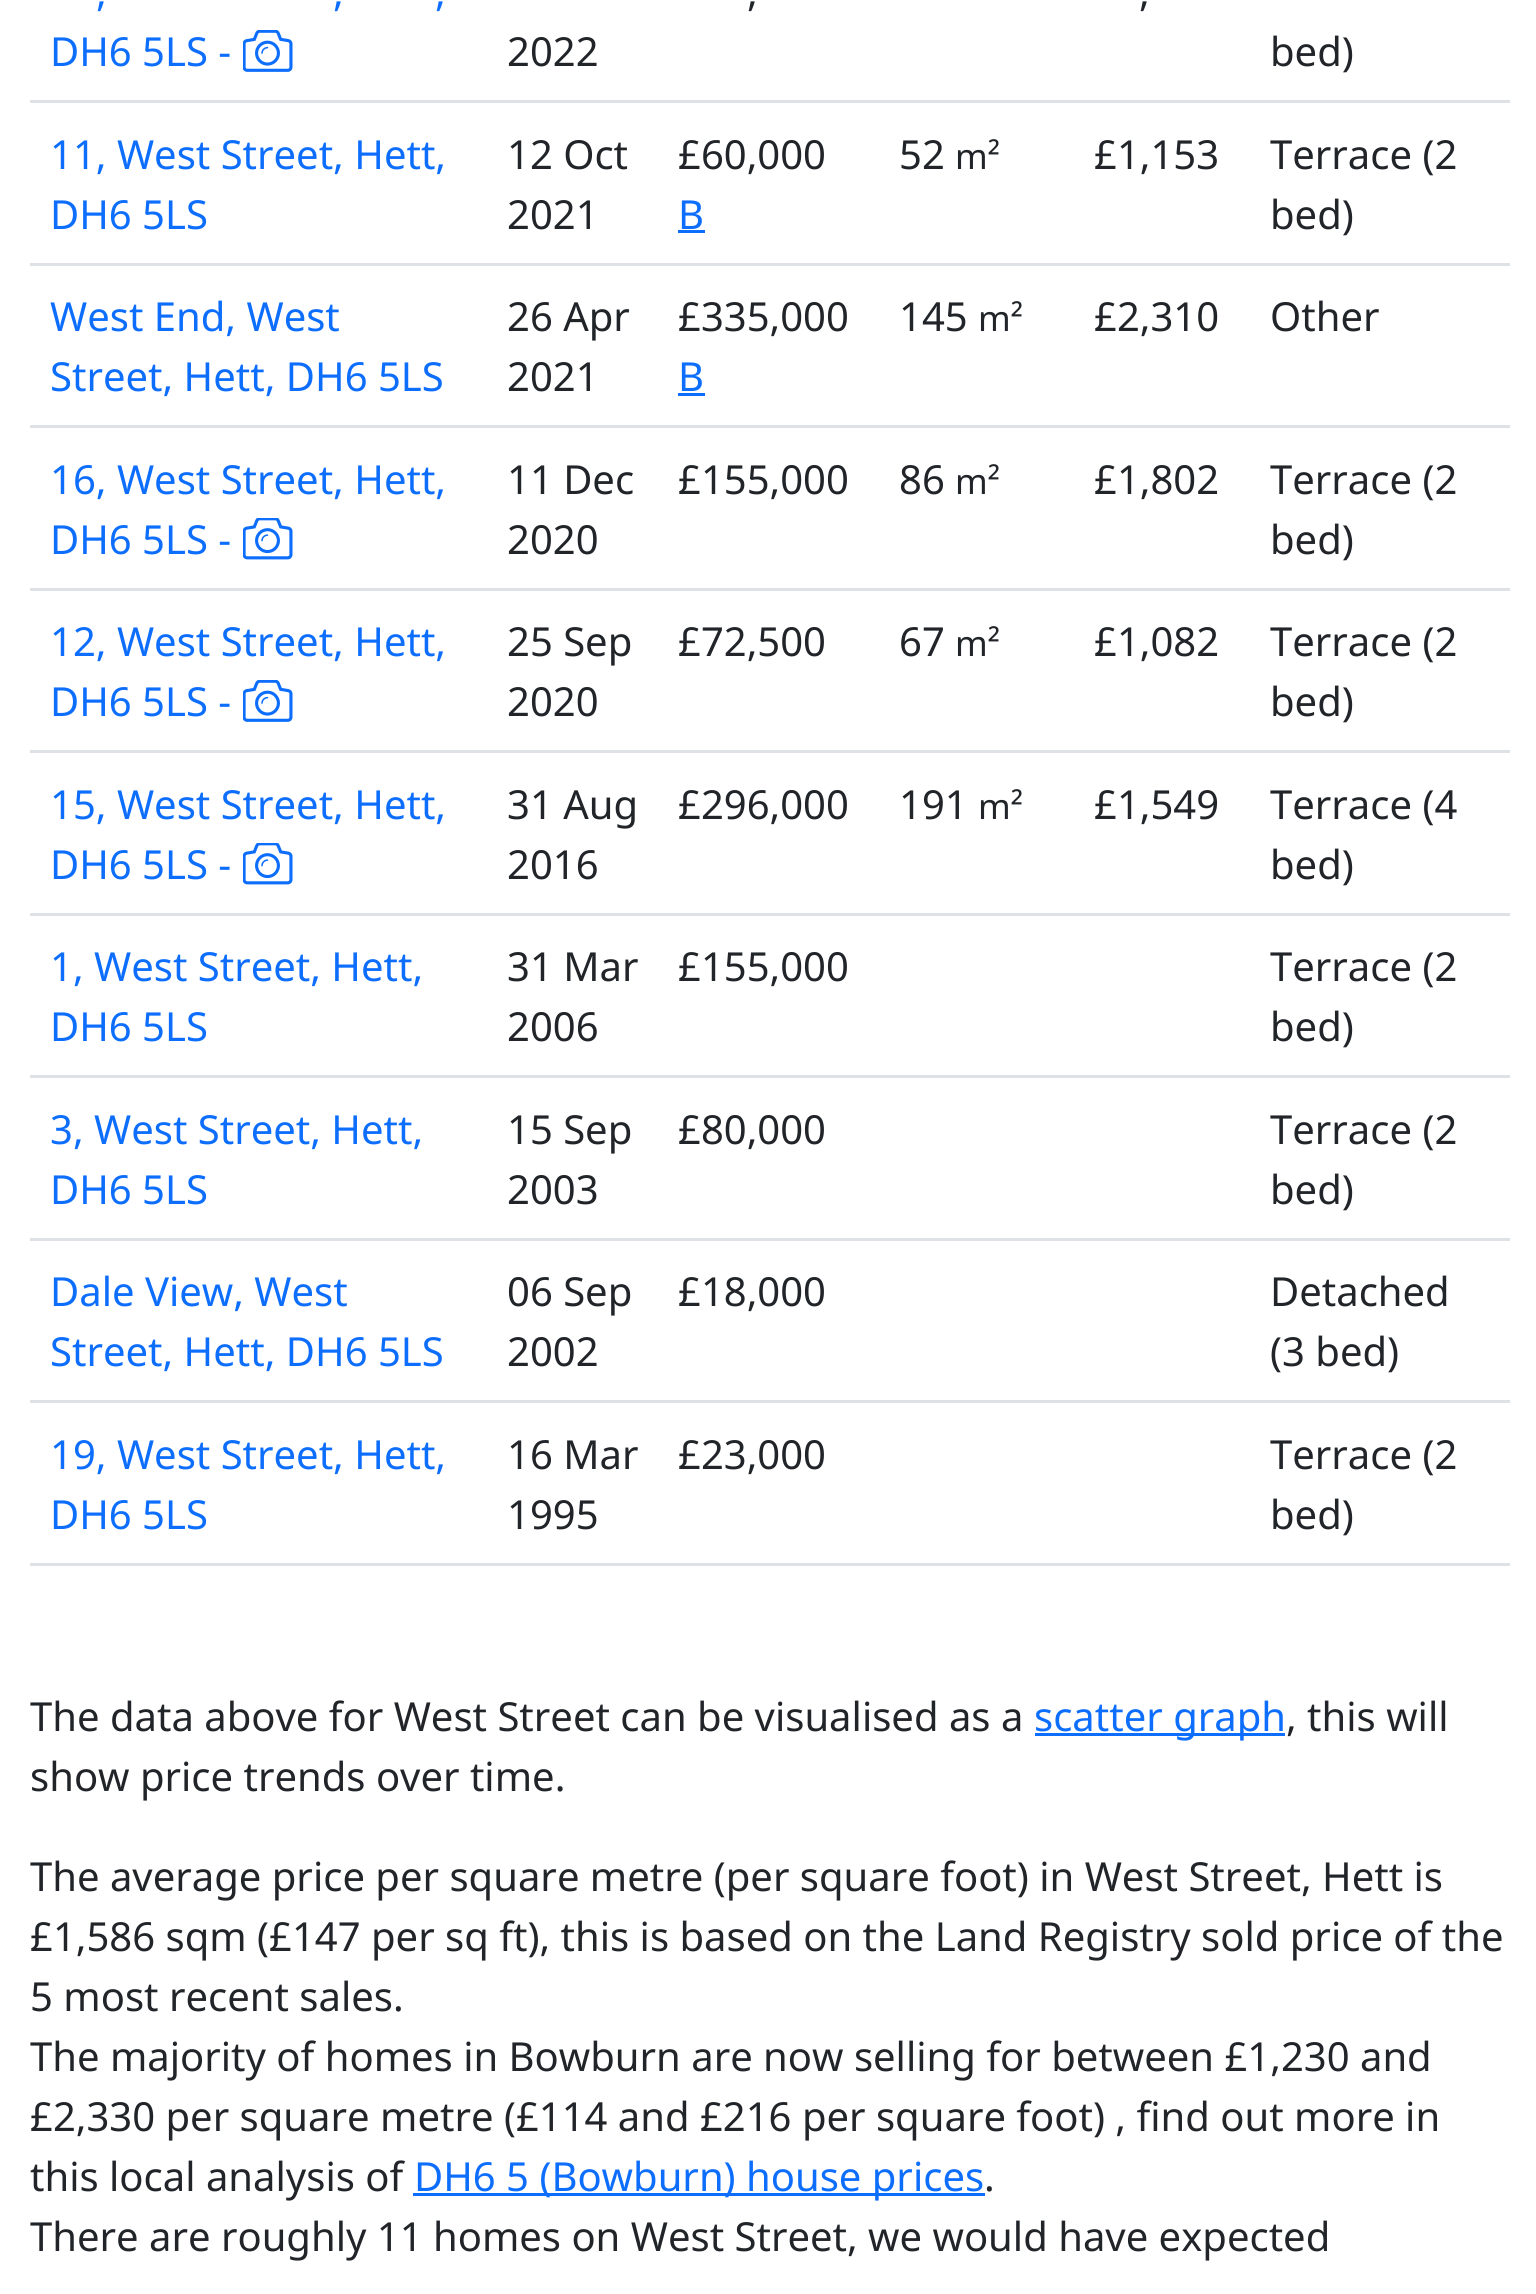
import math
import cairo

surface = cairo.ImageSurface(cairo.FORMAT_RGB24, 1536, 2294)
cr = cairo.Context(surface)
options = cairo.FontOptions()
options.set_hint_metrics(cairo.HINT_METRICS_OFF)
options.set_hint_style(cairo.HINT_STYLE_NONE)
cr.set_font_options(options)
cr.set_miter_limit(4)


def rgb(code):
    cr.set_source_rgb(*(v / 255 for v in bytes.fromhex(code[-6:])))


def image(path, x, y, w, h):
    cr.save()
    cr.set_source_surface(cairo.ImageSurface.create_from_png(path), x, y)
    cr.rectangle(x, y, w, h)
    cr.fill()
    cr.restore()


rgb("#ffffff")
cr.paint()
image("img/1.png", 243, 30, 50, 42)
for x, y, w, h, color in [
    (30, 100, 1480, 3, "#dee2e6"),
    (678, 230, 27, 3, "#0d6efd"),
    (30, 263, 1480, 3, "#dee2e6"),
    (678, 393, 27, 3, "#0d6efd"),
    (30, 425, 1480, 3, "#dee2e6"),
]:
    rgb(color)
    cr.rectangle(x, y, w, h)
    cr.fill()
image("img/2.png", 243, 518, 50, 42)
cr.rectangle(30, 588, 1480, 3)
cr.fill()
image("img/1.png", 243, 680, 50, 42)
cr.rectangle(30, 750, 1480, 3)
cr.fill()
image("img/2.png", 243, 843, 50, 42)
for x, y, w, h, color in [
    (30, 913, 1480, 3, "#dee2e6"),
    (30, 1075, 1480, 3, "#dee2e6"),
    (30, 1238, 1480, 3, "#dee2e6"),
    (30, 1400, 1480, 3, "#dee2e6"),
    (30, 1563, 1480, 3, "#dee2e6"),
    (1035, 1733, 250, 3, "#0d6efd"),
    (413, 2193, 572, 3, "#0d6efd"),
]:
    rgb(color)
    cr.rectangle(x, y, w, h)
    cr.fill()
cr.select_font_face("Noto Sans")
cr.set_font_size(40)
for x, y, s in [
    (96, 6, ","),
    (333, 6, ","),
    (435, 6, ","),
    (50, 66, "DH6 5LS -"),
]:
    cr.move_to(x, y)
    cr.show_text(s)
rgb("#212529")
for x, y, s in [
    (747, 6, ","),
    (1139, 6, ","),
    (507, 66, "2022"),
    (1270, 66, "bed)"),
]:
    cr.move_to(x, y)
    cr.show_text(s)
rgb("#0d6efd")
cr.move_to(50, 169)
cr.show_text("11, West Street, Hett,")
cr.move_to(50, 229)
cr.show_text("DH6 5LS")
rgb("#212529")
for x, y, s in [
    (507, 169, "12 Oct"),
    (507, 229, "2021"),
    (678, 169, "£60,000"),
]:
    cr.move_to(x, y)
    cr.show_text(s)
rgb("#0d6efd")
cr.move_to(678, 229)
cr.show_text("B")
rgb("#212529")
cr.move_to(899, 169)
cr.show_text("52")
cr.set_font_size(35)
cr.move_to(955, 169)
cr.show_text("m²")
cr.set_font_size(40)
for x, y, s in [
    (1094, 169, "£1,153"),
    (1270, 169, "Terrace (2"),
    (1270, 229, "bed)"),
]:
    cr.move_to(x, y)
    cr.show_text(s)
rgb("#0d6efd")
cr.move_to(50, 331)
cr.show_text("West End, West")
cr.move_to(50, 391)
cr.show_text("Street, Hett, DH6 5LS")
rgb("#212529")
for x, y, s in [
    (507, 331, "26 Apr"),
    (507, 391, "2021"),
    (678, 331, "£335,000"),
]:
    cr.move_to(x, y)
    cr.show_text(s)
rgb("#0d6efd")
cr.move_to(678, 391)
cr.show_text("B")
rgb("#212529")
cr.move_to(899, 331)
cr.show_text("145")
cr.set_font_size(35)
cr.move_to(978, 331)
cr.show_text("m²")
cr.set_font_size(40)
cr.move_to(1094, 331)
cr.show_text("£2,310")
cr.move_to(1270, 331)
cr.show_text("Other")
rgb("#0d6efd")
cr.move_to(50, 494)
cr.show_text("16, West Street, Hett,")
cr.move_to(50, 554)
cr.show_text("DH6 5LS -")
rgb("#212529")
for x, y, s in [
    (507, 494, "11 Dec"),
    (507, 554, "2020"),
    (678, 494, "£155,000"),
    (899, 494, "86"),
]:
    cr.move_to(x, y)
    cr.show_text(s)
cr.set_font_size(35)
cr.move_to(955, 494)
cr.show_text("m²")
cr.set_font_size(40)
for x, y, s in [
    (1094, 494, "£1,802"),
    (1270, 494, "Terrace (2"),
    (1270, 554, "bed)"),
]:
    cr.move_to(x, y)
    cr.show_text(s)
rgb("#0d6efd")
cr.move_to(50, 656)
cr.show_text("12, West Street, Hett,")
cr.move_to(50, 716)
cr.show_text("DH6 5LS -")
rgb("#212529")
for x, y, s in [
    (507, 656, "25 Sep"),
    (507, 716, "2020"),
    (678, 656, "£72,500"),
    (899, 656, "67"),
]:
    cr.move_to(x, y)
    cr.show_text(s)
cr.set_font_size(35)
cr.move_to(955, 656)
cr.show_text("m²")
cr.set_font_size(40)
for x, y, s in [
    (1094, 656, "£1,082"),
    (1270, 656, "Terrace (2"),
    (1270, 716, "bed)"),
]:
    cr.move_to(x, y)
    cr.show_text(s)
rgb("#0d6efd")
cr.move_to(50, 819)
cr.show_text("15, West Street, Hett,")
cr.move_to(50, 879)
cr.show_text("DH6 5LS -")
rgb("#212529")
for x, y, s in [
    (507, 819, "31 Aug"),
    (507, 879, "2016"),
    (678, 819, "£296,000"),
    (899, 819, "191"),
]:
    cr.move_to(x, y)
    cr.show_text(s)
cr.set_font_size(35)
cr.move_to(978, 819)
cr.show_text("m²")
cr.set_font_size(40)
for x, y, s in [
    (1094, 819, "£1,549"),
    (1270, 819, "Terrace (4"),
    (1270, 879, "bed)"),
]:
    cr.move_to(x, y)
    cr.show_text(s)
rgb("#0d6efd")
cr.move_to(50, 981)
cr.show_text("1, West Street, Hett,")
cr.move_to(50, 1041)
cr.show_text("DH6 5LS")
rgb("#212529")
for x, y, s in [
    (507, 981, "31 Mar"),
    (507, 1041, "2006"),
    (678, 981, "£155,000"),
    (1270, 981, "Terrace (2"),
    (1270, 1041, "bed)"),
]:
    cr.move_to(x, y)
    cr.show_text(s)
rgb("#0d6efd")
cr.move_to(50, 1144)
cr.show_text("3, West Street, Hett,")
cr.move_to(50, 1204)
cr.show_text("DH6 5LS")
rgb("#212529")
for x, y, s in [
    (507, 1144, "15 Sep"),
    (507, 1204, "2003"),
    (678, 1144, "£80,000"),
    (1270, 1144, "Terrace (2"),
    (1270, 1204, "bed)"),
]:
    cr.move_to(x, y)
    cr.show_text(s)
rgb("#0d6efd")
cr.move_to(50, 1306)
cr.show_text("Dale View, West")
cr.move_to(50, 1366)
cr.show_text("Street, Hett, DH6 5LS")
rgb("#212529")
for x, y, s in [
    (507, 1306, "06 Sep"),
    (507, 1366, "2002"),
    (678, 1306, "£18,000"),
    (1270, 1306, "Detached"),
    (1270, 1366, "(3 bed)"),
]:
    cr.move_to(x, y)
    cr.show_text(s)
rgb("#0d6efd")
cr.move_to(50, 1469)
cr.show_text("19, West Street, Hett,")
cr.move_to(50, 1529)
cr.show_text("DH6 5LS")
rgb("#212529")
for x, y, s in [
    (507, 1469, "16 Mar"),
    (507, 1529, "1995"),
    (678, 1469, "£23,000"),
    (1270, 1469, "Terrace (2"),
    (1270, 1529, "bed)"),
    (30, 1731, "The data above for West Street can be visualised as a"),
]:
    cr.move_to(x, y)
    cr.show_text(s)
rgb("#0d6efd")
cr.move_to(1034, 1731)
cr.show_text("scatter graph")
rgb("#212529")
for x, y, s in [
    (1286, 1731, ", this will"),
    (30, 1791, "show price trends over time."),
    (30, 1891, "The average price per square metre (per square foot) in West Street, Hett is"),
    (30, 1951, "£1,586 sqm (£147 per sq ft), this is based on the Land Registry sold price of the"),
    (30, 2011, "5 most recent sales."),
    (30, 2071, "The majority of homes in Bowburn are now selling for between £1,230 and"),
    (30, 2131, "£2,330 per square metre (£114 and £216 per square foot) , find out more in"),
    (30, 2191, "this local analysis of"),
]:
    cr.move_to(x, y)
    cr.show_text(s)
rgb("#0d6efd")
cr.move_to(414, 2191)
cr.show_text("DH6 5 (Bowburn) house prices")
rgb("#212529")
cr.move_to(984, 2191)
cr.show_text(".")
cr.move_to(30, 2251)
cr.show_text("There are roughly 11 homes on West Street, we would have expected")
surface.write_to_png("page.png")
